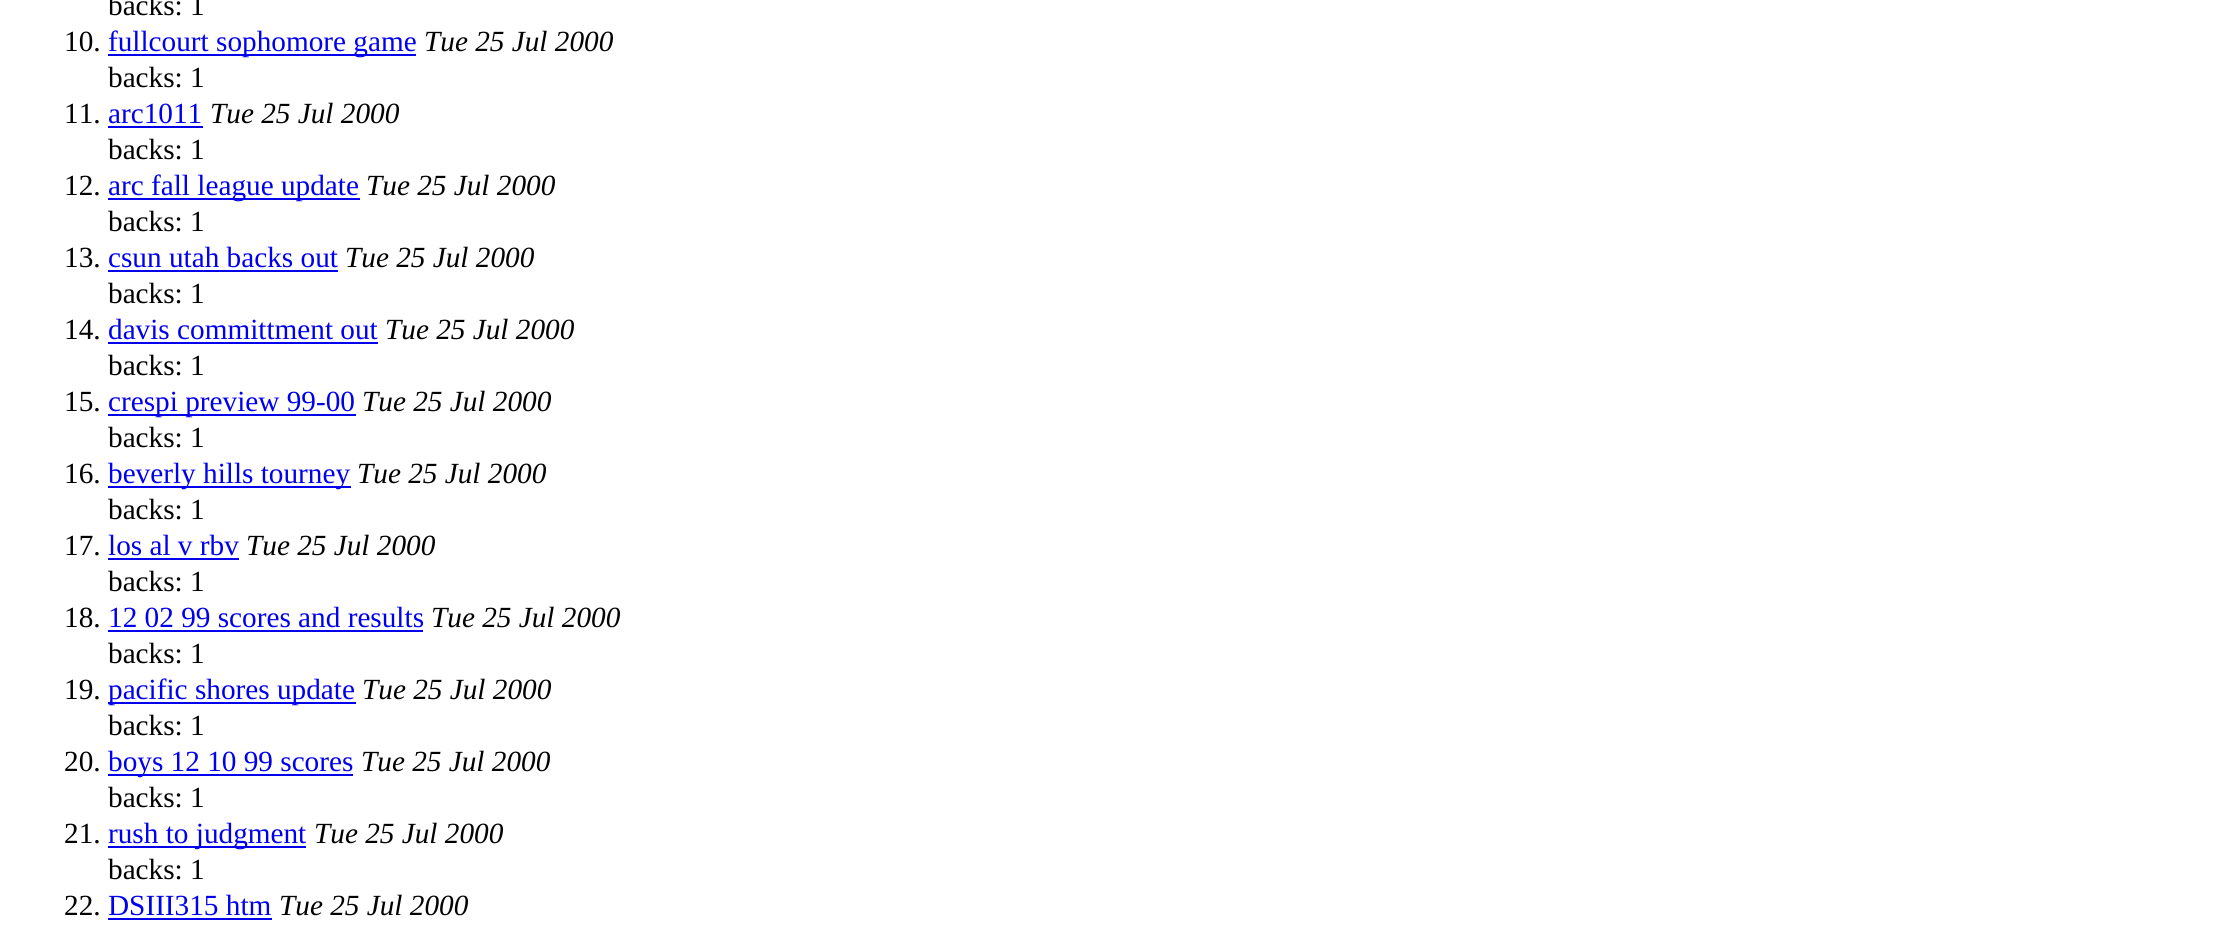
import math
import cairo

surface = cairo.ImageSurface(cairo.FORMAT_RGB24, 2223, 933)
cr = cairo.Context(surface)
options = cairo.FontOptions()
options.set_hint_metrics(cairo.HINT_METRICS_OFF)
options.set_hint_style(cairo.HINT_STYLE_NONE)
cr.set_font_options(options)
cr.set_miter_limit(4)


def rgb(code):
    cr.set_source_rgb(*(v / 255 for v in bytes.fromhex(code[-6:])))


rgb("#ffffff")
cr.paint()
for x, y, w, h, color in [
    (108, 54, 308, 2, "#0000ee"),
    (108, 126, 95, 2, "#0000ee"),
    (108, 198, 252, 2, "#0000ee"),
    (108, 270, 230, 2, "#0000ee"),
    (108, 342, 270, 2, "#0000ee"),
    (108, 414, 248, 2, "#0000ee"),
    (108, 486, 243, 2, "#0000ee"),
    (108, 558, 131, 2, "#0000ee"),
    (108, 630, 315, 2, "#0000ee"),
    (108, 702, 248, 2, "#0000ee"),
    (108, 774, 245, 2, "#0000ee"),
    (108, 846, 198, 2, "#0000ee"),
    (108, 918, 164, 2, "#0000ee"),
]:
    rgb(color)
    cr.rectangle(x, y, w, h)
    cr.fill()
cr.select_font_face("Liberation Serif")
cr.set_font_size(29.25)
rgb("#000000")
cr.move_to(108, 15)
cr.show_text("backs: 1")
cr.move_to(64, 51)
cr.show_text("10.")
rgb("#0000ee")
cr.move_to(108, 51)
cr.show_text("fullcourt sophomore game")
cr.select_font_face("Liberation Serif", cairo.FONT_SLANT_ITALIC)
rgb("#000000")
cr.move_to(424, 51)
cr.show_text("Tue 25 Jul 2000")
cr.select_font_face("Liberation Serif")
cr.move_to(108, 87)
cr.show_text("backs: 1")
cr.move_to(64, 123)
cr.show_text("11.")
rgb("#0000ee")
cr.move_to(108, 123)
cr.show_text("arc1011")
cr.select_font_face("Liberation Serif", cairo.FONT_SLANT_ITALIC)
rgb("#000000")
cr.move_to(210, 123)
cr.show_text("Tue 25 Jul 2000")
cr.select_font_face("Liberation Serif")
cr.move_to(108, 159)
cr.show_text("backs: 1")
cr.move_to(64, 195)
cr.show_text("12.")
rgb("#0000ee")
cr.move_to(108, 195)
cr.show_text("arc fall league update")
cr.select_font_face("Liberation Serif", cairo.FONT_SLANT_ITALIC)
rgb("#000000")
cr.move_to(366, 195)
cr.show_text("Tue 25 Jul 2000")
cr.select_font_face("Liberation Serif")
cr.move_to(108, 231)
cr.show_text("backs: 1")
cr.move_to(64, 267)
cr.show_text("13.")
rgb("#0000ee")
cr.move_to(108, 267)
cr.show_text("csun utah backs out")
cr.select_font_face("Liberation Serif", cairo.FONT_SLANT_ITALIC)
rgb("#000000")
cr.move_to(345, 267)
cr.show_text("Tue 25 Jul 2000")
cr.select_font_face("Liberation Serif")
cr.move_to(108, 303)
cr.show_text("backs: 1")
cr.move_to(64, 339)
cr.show_text("14.")
rgb("#0000ee")
cr.move_to(108, 339)
cr.show_text("davis committment out")
cr.select_font_face("Liberation Serif", cairo.FONT_SLANT_ITALIC)
rgb("#000000")
cr.move_to(385, 339)
cr.show_text("Tue 25 Jul 2000")
cr.select_font_face("Liberation Serif")
cr.move_to(108, 375)
cr.show_text("backs: 1")
cr.move_to(64, 411)
cr.show_text("15.")
rgb("#0000ee")
cr.move_to(108, 411)
cr.show_text("crespi preview 99-00")
cr.select_font_face("Liberation Serif", cairo.FONT_SLANT_ITALIC)
rgb("#000000")
cr.move_to(362, 411)
cr.show_text("Tue 25 Jul 2000")
cr.select_font_face("Liberation Serif")
cr.move_to(108, 447)
cr.show_text("backs: 1")
cr.move_to(64, 483)
cr.show_text("16.")
rgb("#0000ee")
cr.move_to(108, 483)
cr.show_text("beverly hills tourney")
cr.select_font_face("Liberation Serif", cairo.FONT_SLANT_ITALIC)
rgb("#000000")
cr.move_to(357, 483)
cr.show_text("Tue 25 Jul 2000")
cr.select_font_face("Liberation Serif")
cr.move_to(108, 519)
cr.show_text("backs: 1")
cr.move_to(64, 555)
cr.show_text("17.")
rgb("#0000ee")
cr.move_to(108, 555)
cr.show_text("los al v rbv")
cr.select_font_face("Liberation Serif", cairo.FONT_SLANT_ITALIC)
rgb("#000000")
cr.move_to(246, 555)
cr.show_text("Tue 25 Jul 2000")
cr.select_font_face("Liberation Serif")
cr.move_to(108, 591)
cr.show_text("backs: 1")
cr.move_to(64, 627)
cr.show_text("18.")
rgb("#0000ee")
cr.move_to(108, 627)
cr.show_text("12 02 99 scores and results")
cr.select_font_face("Liberation Serif", cairo.FONT_SLANT_ITALIC)
rgb("#000000")
cr.move_to(431, 627)
cr.show_text("Tue 25 Jul 2000")
cr.select_font_face("Liberation Serif")
cr.move_to(108, 663)
cr.show_text("backs: 1")
cr.move_to(64, 699)
cr.show_text("19.")
rgb("#0000ee")
cr.move_to(108, 699)
cr.show_text("pacific shores update")
cr.select_font_face("Liberation Serif", cairo.FONT_SLANT_ITALIC)
rgb("#000000")
cr.move_to(362, 699)
cr.show_text("Tue 25 Jul 2000")
cr.select_font_face("Liberation Serif")
cr.move_to(108, 735)
cr.show_text("backs: 1")
cr.move_to(64, 771)
cr.show_text("20.")
rgb("#0000ee")
cr.move_to(108, 771)
cr.show_text("boys 12 10 99 scores")
cr.select_font_face("Liberation Serif", cairo.FONT_SLANT_ITALIC)
rgb("#000000")
cr.move_to(361, 771)
cr.show_text("Tue 25 Jul 2000")
cr.select_font_face("Liberation Serif")
cr.move_to(108, 807)
cr.show_text("backs: 1")
cr.move_to(64, 843)
cr.show_text("21.")
rgb("#0000ee")
cr.move_to(108, 843)
cr.show_text("rush to judgment")
cr.select_font_face("Liberation Serif", cairo.FONT_SLANT_ITALIC)
rgb("#000000")
cr.move_to(314, 843)
cr.show_text("Tue 25 Jul 2000")
cr.select_font_face("Liberation Serif")
cr.move_to(108, 879)
cr.show_text("backs: 1")
cr.move_to(64, 915)
cr.show_text("22.")
rgb("#0000ee")
cr.move_to(108, 915)
cr.show_text("DSIII315 htm")
cr.select_font_face("Liberation Serif", cairo.FONT_SLANT_ITALIC)
rgb("#000000")
cr.move_to(279, 915)
cr.show_text("Tue 25 Jul 2000")
surface.write_to_png("page.png")
